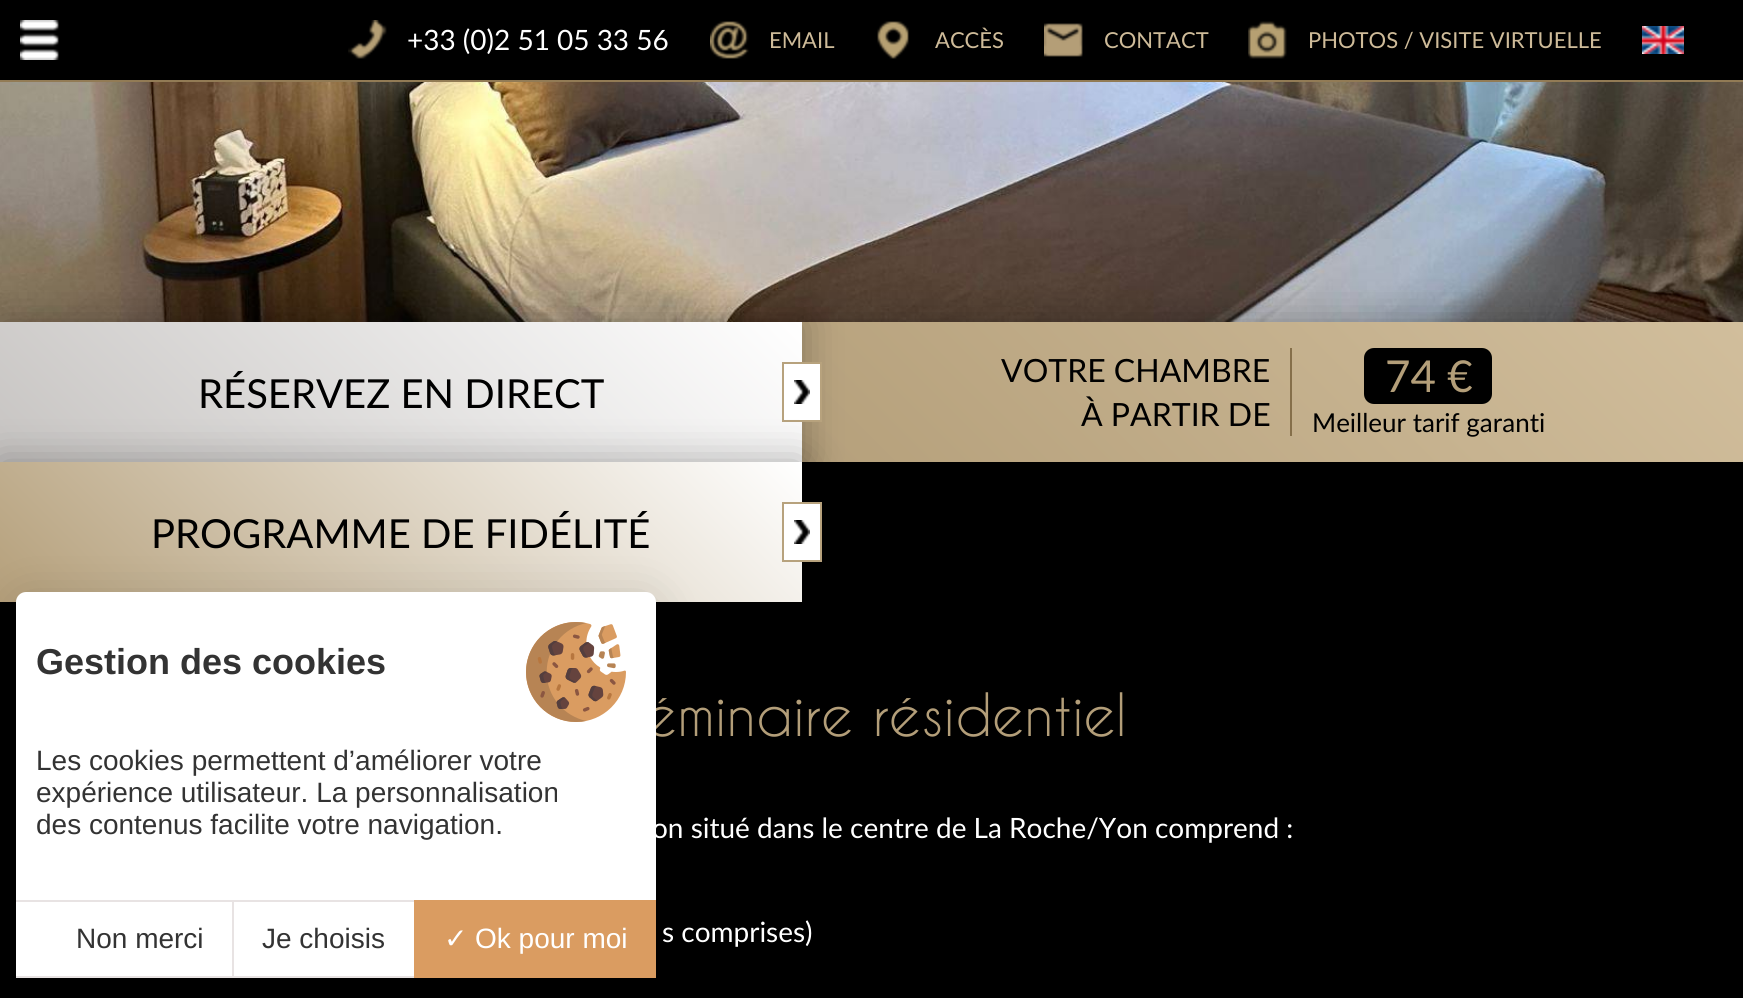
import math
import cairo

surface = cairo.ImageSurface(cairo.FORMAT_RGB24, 1743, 998)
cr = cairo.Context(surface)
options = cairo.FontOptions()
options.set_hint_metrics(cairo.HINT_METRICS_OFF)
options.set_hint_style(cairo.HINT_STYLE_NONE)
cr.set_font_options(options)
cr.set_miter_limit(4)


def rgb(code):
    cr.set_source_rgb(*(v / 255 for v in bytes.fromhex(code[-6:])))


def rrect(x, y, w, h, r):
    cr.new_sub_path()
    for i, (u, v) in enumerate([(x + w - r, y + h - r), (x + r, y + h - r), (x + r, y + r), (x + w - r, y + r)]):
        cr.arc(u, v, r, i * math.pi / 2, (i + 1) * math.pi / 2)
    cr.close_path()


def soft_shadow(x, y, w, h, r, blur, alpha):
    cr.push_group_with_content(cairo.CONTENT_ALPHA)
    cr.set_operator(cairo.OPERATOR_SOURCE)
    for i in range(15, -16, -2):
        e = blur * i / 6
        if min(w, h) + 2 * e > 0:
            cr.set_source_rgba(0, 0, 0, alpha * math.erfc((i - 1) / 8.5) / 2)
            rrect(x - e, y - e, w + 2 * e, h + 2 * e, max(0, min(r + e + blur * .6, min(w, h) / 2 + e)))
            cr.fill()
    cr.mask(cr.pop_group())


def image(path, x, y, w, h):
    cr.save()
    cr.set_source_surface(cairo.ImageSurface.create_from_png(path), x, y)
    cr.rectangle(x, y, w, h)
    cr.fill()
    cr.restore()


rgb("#000000")
cr.paint()
rgb("#927b55")
cr.rectangle(0, 80, 1743, 2)
cr.fill()
image("img/1.png", 20, 20, 39, 40)
image("img/2.png", 348, 20, 39, 39)
image("img/3.png", 710, 21, 39, 38)
image("img/4.png", 877, 21, 32, 38)
image("img/5.png", 1044, 23, 39, 34)
image("img/6.png", 1248, 21, 39, 38)
image("img/7.png", 1642, 26, 42, 28)
image("img/8.png", 0, 82, 1743, 240)
rgb("#000000")
soft_shadow(802, 322, 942, 140, 0, 20, 0.3)
gradient = cairo.LinearGradient(1003, 663, 1544, 122)
gradient.add_color_stop_rgba(0, 0.71, 0.627, 0.482, 1)
gradient.add_color_stop_rgba(1, 0.82, 0.745, 0.612, 1)
cr.set_source(gradient)
cr.rectangle(802, 322, 941, 140)
cr.fill()
rgb("#000000")
soft_shadow(0, 322, 802, 140, 0, 20, 0.3)
gradient = cairo.LinearGradient(166, 628, 637, 157)
gradient.add_color_stop_rgba(0, 0.78, 0.769, 0.761, 1)
gradient.add_color_stop_rgba(1, 1, 1, 1, 1)
cr.set_source(gradient)
cr.rectangle(0, 322, 802, 140)
cr.fill()
rgb("#ffffff")
cr.rectangle(784, 364, 36, 56)
cr.fill()
image("img/9.png", 794, 380, 16, 24)
cr.rectangle(783, 363, 38, 58)
rgb("#b7a27d")
cr.stroke()
rgb("#856f4a")
cr.rectangle(1290, 348, 2, 88)
cr.fill()
rgb("#000000")
rrect(1364, 348, 128, 56, 10)
cr.fill()
rgb("#000000")
soft_shadow(0, 462, 802, 140, 0, 20, 0.3)
gradient = cairo.LinearGradient(166, 768, 637, 297)
gradient.add_color_stop_rgba(0, 0.71, 0.627, 0.482, 1)
gradient.add_color_stop_rgba(1, 1, 1, 1, 1)
cr.set_source(gradient)
cr.rectangle(0, 462, 802, 140)
cr.fill()
rgb("#ffffff")
cr.rectangle(784, 504, 36, 56)
cr.fill()
image("img/9.png", 794, 520, 16, 24)
cr.rectangle(783, 503, 38, 58)
rgb("#b7a27d")
cr.stroke()
rgb("#000000")
soft_shadow(16, 600, 640, 386, 10, 24, 0.15)
cr.select_font_face("Lato")
cr.set_font_size(28)
rgb("#ffffff")
cr.move_to(407, 50)
cr.show_text("+33 (0)2 51 05 33 56")
cr.set_font_size(22)
rgb("#cebb99")
for x, y, s in [
    (769, 48, "EMAIL"),
    (935, 48, "ACCÈS"),
    (1104, 48, "CONTACT"),
    (1308, 48, "PHOTOS / VISITE VIRTUELLE"),
]:
    cr.move_to(x, y)
    cr.show_text(s)
cr.set_font_size(40)
rgb("#000000")
cr.move_to(198, 408)
cr.show_text("RÉSERVEZ EN DIRECT")
cr.set_font_size(32)
cr.move_to(1001, 382)
cr.show_text("VOTRE CHAMBRE")
cr.move_to(1081, 426)
cr.show_text("À PARTIR DE")
cr.set_font_size(44)
rgb("#b39e79")
cr.move_to(1385, 392)
cr.show_text("74 €")
cr.set_font_size(26)
rgb("#000000")
cr.move_to(1312, 432)
cr.show_text("Meilleur tarif garanti")
cr.set_font_size(40)
cr.move_to(151, 548)
cr.show_text("PROGRAMME DE FIDÉLITÉ")
cr.select_font_face("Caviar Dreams")
cr.set_font_size(56)
rgb("#b39e79")
cr.move_to(645, 736)
cr.show_text("éminaire résidentiel")
rgb("#ffffff")
cr.new_path()
cr.move_to(26, 592)
cr.line_to(646, 592)
cr.curve_to(651.5, 592, 656, 596.5, 656, 602)
cr.line_to(656, 978)
cr.line_to(16, 978)
cr.line_to(16, 602)
cr.curve_to(16, 596.5, 20.5, 592, 26, 592)
cr.close_path()
cr.fill()
rgb("#da9c61")
cr.rectangle(414, 900, 242, 78)
cr.fill()
cr.select_font_face("Liberation Sans")
cr.set_font_size(28)
rgb("#ffffff")
cr.move_to(475, 948)
cr.show_text("Ok pour moi")
cr.select_font_face("DejaVu Sans")
cr.move_to(444, 948)
cr.show_text("✓")
cr.select_font_face("Liberation Sans")
rgb("#333333")
cr.move_to(262, 948)
cr.show_text("Je choisis")
for x, y, w, h, color in [
    (16, 976, 398, 2, "#e8e3e3"),
    (16, 900, 398, 2, "#e8e3e3"),
    (232, 900, 2, 78, "#e8e3e3"),
]:
    rgb(color)
    cr.rectangle(x, y, w, h)
    cr.fill()
rgb("#333333")
for x, y, s in [
    (76, 948, "Non merci"),
    (36, 834, "des contenus facilite votre navigation."),
    (36, 802, "expérience utilisateur. La personnalisation"),
    (36, 770, "Les cookies permettent d’améliorer votre"),
]:
    cr.move_to(x, y)
    cr.show_text(s)
cr.select_font_face("Liberation Sans", cairo.FONT_SLANT_NORMAL, cairo.FONT_WEIGHT_BOLD)
cr.set_font_size(36)
cr.move_to(36, 674)
cr.show_text("Gestion des cookies")
image("img/10.png", 526, 622, 100, 100)
cr.select_font_face("Lato")
cr.set_font_size(28)
rgb("#ffffff")
cr.move_to(652, 838)
cr.show_text("on situé dans le centre de La Roche/Yon comprend :")
cr.move_to(662, 942)
cr.show_text("s comprises)")
surface.write_to_png("page.png")
